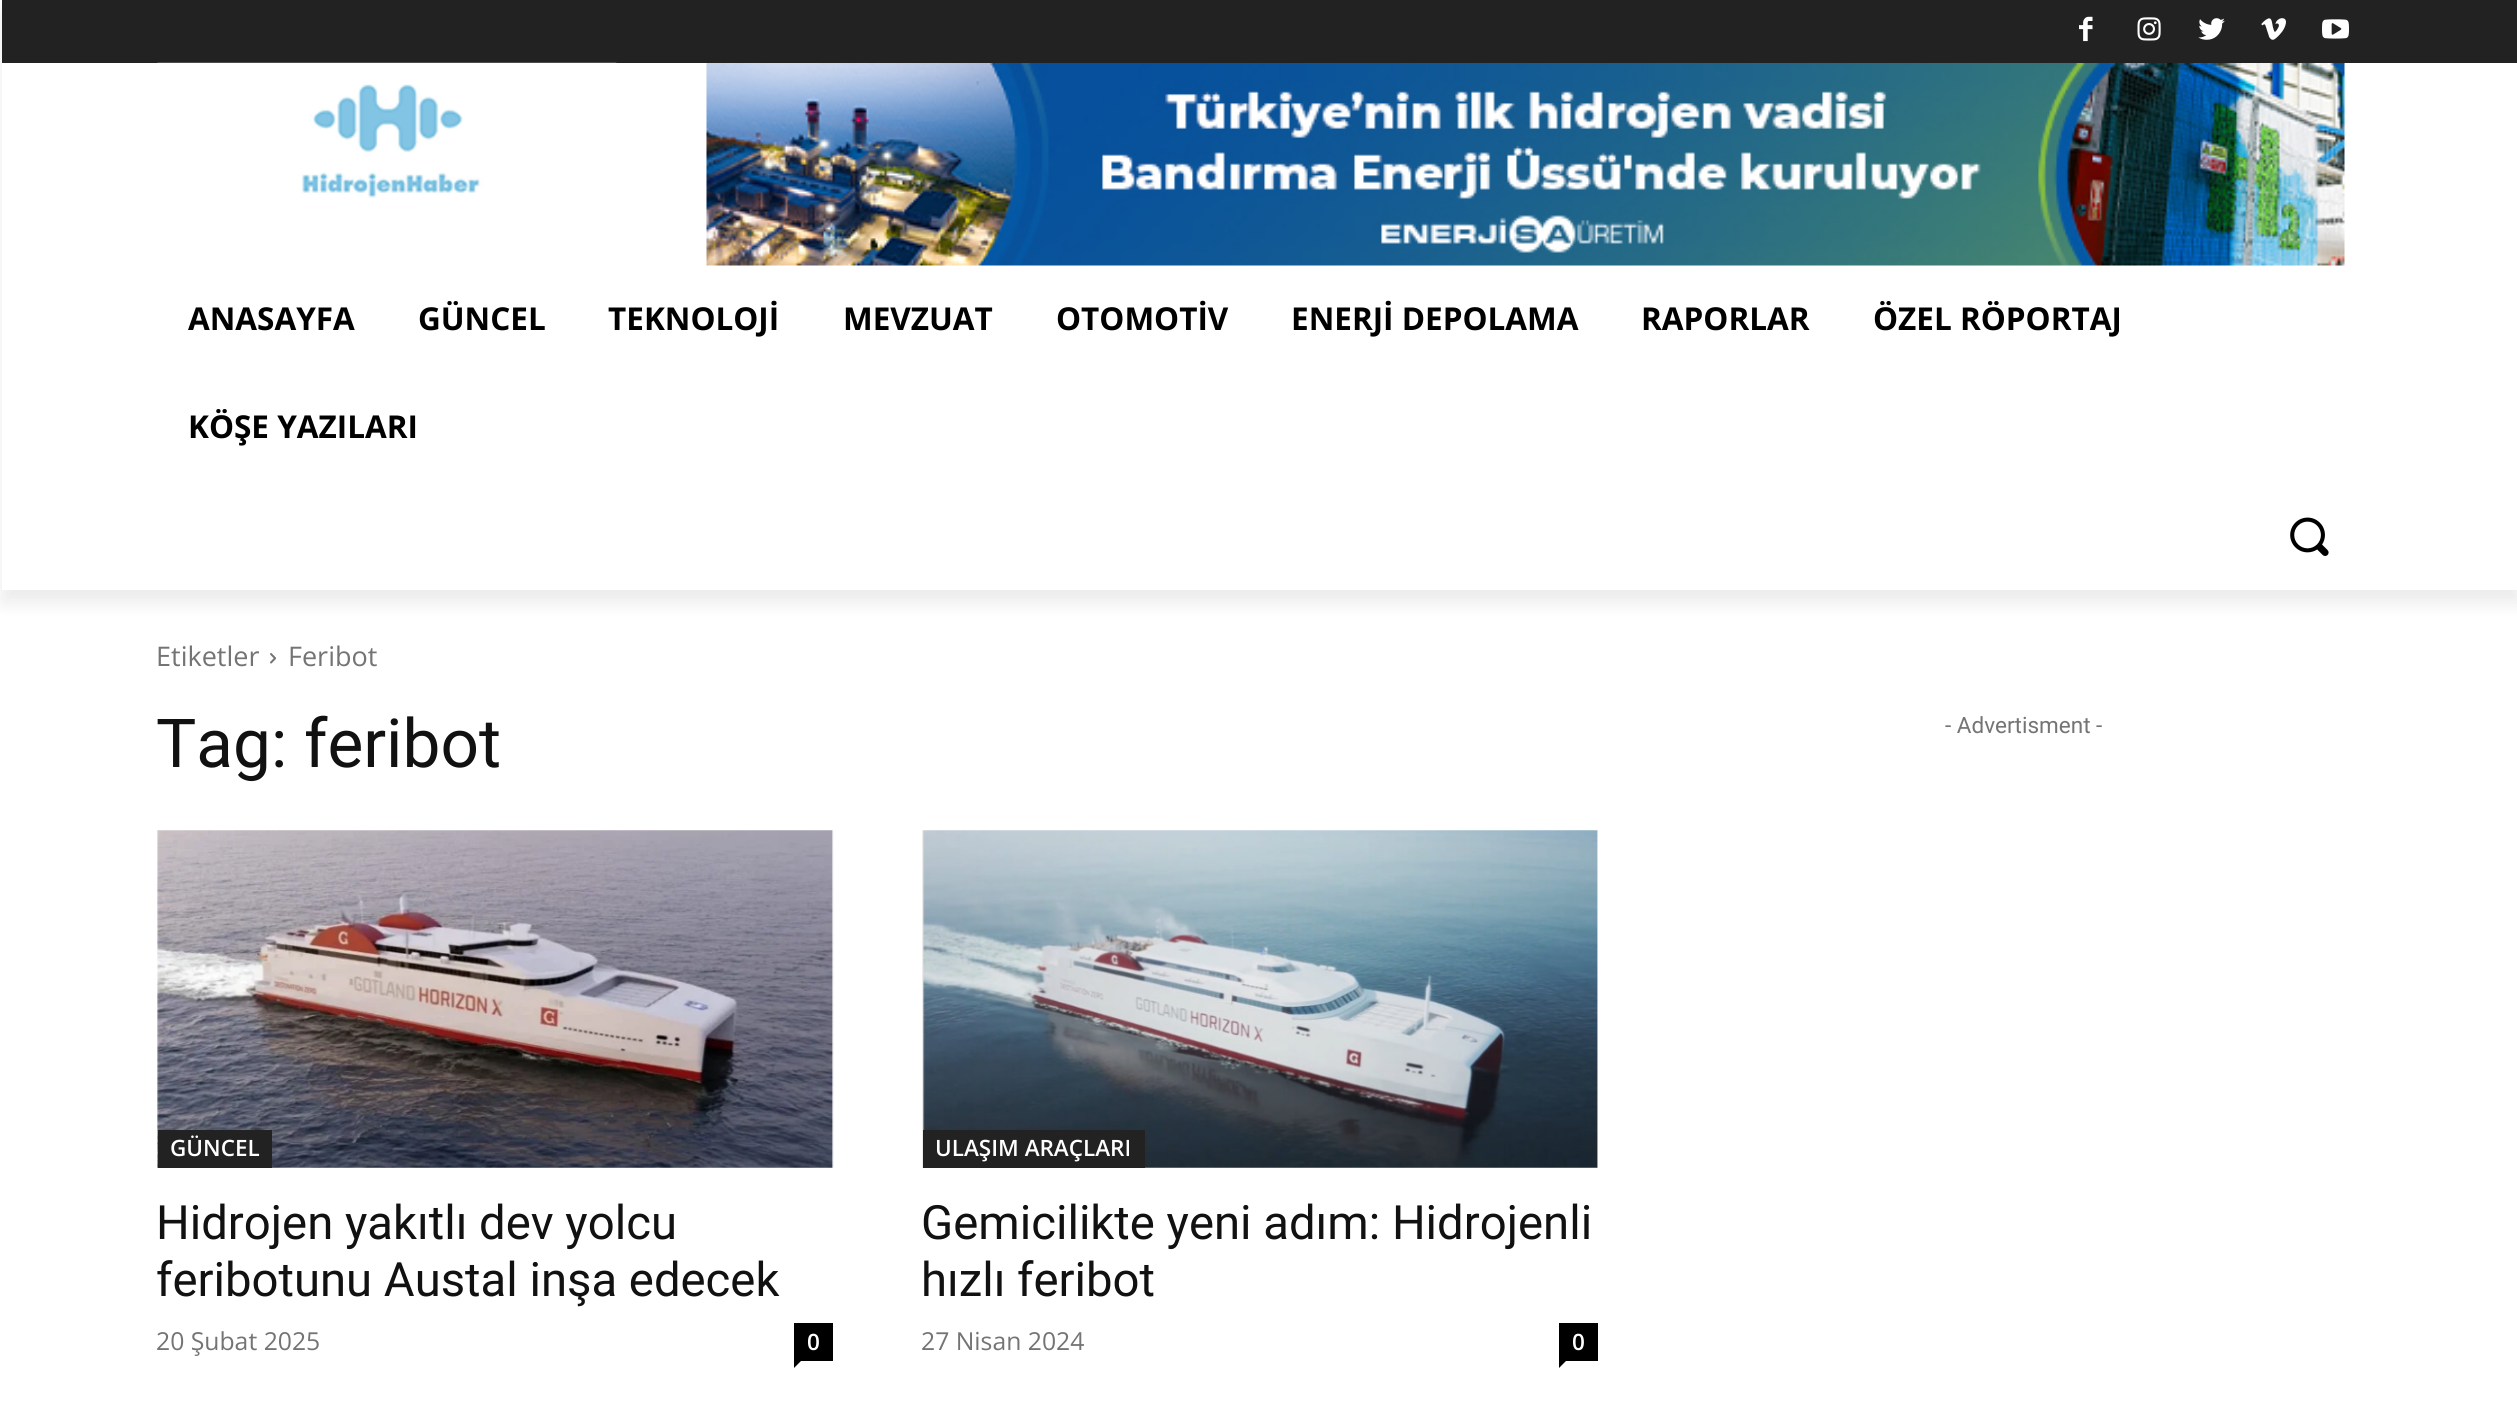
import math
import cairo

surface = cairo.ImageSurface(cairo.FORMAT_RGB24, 2517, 1412)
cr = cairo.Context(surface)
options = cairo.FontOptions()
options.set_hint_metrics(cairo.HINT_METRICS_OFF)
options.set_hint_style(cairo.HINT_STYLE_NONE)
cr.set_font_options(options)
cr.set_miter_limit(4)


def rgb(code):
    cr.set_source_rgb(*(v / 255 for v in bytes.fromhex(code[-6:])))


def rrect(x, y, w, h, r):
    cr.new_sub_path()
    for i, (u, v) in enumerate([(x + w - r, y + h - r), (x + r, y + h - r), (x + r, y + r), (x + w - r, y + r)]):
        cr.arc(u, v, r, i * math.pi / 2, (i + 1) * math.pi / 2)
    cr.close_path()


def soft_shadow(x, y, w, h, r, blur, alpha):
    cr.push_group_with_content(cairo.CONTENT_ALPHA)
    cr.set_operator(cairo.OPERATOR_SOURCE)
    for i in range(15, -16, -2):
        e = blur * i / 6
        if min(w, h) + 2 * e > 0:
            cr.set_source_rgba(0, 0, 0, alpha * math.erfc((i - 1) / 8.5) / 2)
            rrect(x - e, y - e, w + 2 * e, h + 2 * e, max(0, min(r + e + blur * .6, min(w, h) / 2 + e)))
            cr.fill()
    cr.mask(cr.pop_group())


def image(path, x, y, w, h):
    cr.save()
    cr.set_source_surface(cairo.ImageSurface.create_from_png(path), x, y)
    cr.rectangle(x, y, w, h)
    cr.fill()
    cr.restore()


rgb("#ffffff")
cr.paint()
rgb("#222222")
cr.rectangle(2, 0, 2515, 63)
cr.fill()
image("img/1.png", 2079, 16, 14, 26)
image("img/2.png", 2137, 17, 24, 24)
image("img/3.png", 2198, 18, 27, 22)
image("img/4.png", 2261, 18, 25, 22)
image("img/5.png", 2322, 19, 27, 20)
image("img/6.png", 157, 62, 460, 136)
image("img/7.png", 706, 63, 1639, 203)
cr.save()
cr.set_fill_rule(cairo.FILL_RULE_EVEN_ODD)
cr.new_path()
cr.move_to(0, 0)
cr.line_to(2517, 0)
cr.line_to(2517, 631)
cr.line_to(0, 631)
cr.close_path()
cr.move_to(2, 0)
cr.line_to(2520, 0)
cr.line_to(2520, 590)
cr.line_to(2, 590)
cr.close_path()
cr.clip()
rgb("#000000")
soft_shadow(2, 14, 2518, 589, 0, 9, 0.08)
cr.restore()
image("img/8.png", 2290, 517, 39, 39)
image("img/9.png", 270, 653, 7, 11)
image("img/10.png", 157, 830, 677, 338)
cr.rectangle(158, 1130, 114, 38)
cr.fill()
rgb("#000000")
cr.rectangle(794, 1323, 39, 38)
cr.fill()
cr.new_path()
cr.move_to(794, 1361)
cr.line_to(801, 1361)
cr.line_to(794, 1368)
cr.close_path()
cr.fill()
image("img/11.png", 922, 830, 676, 338)
rgb("#222222")
cr.rectangle(923, 1130, 222, 38)
cr.fill()
rgb("#000000")
cr.rectangle(1559, 1323, 39, 38)
cr.fill()
cr.new_path()
cr.move_to(1559, 1361)
cr.line_to(1566, 1361)
cr.line_to(1559, 1368)
cr.close_path()
cr.fill()
cr.select_font_face("Open Sans", cairo.FONT_SLANT_NORMAL, cairo.FONT_WEIGHT_BOLD)
cr.set_font_size(31.5)
for x, y, s in [
    (188, 330, "ANASAYFA"),
    (418, 330, "GÜNCEL"),
    (608, 330, "TEKNOLOJİ"),
    (843, 330, "MEVZUAT"),
    (1056, 330, "OTOMOTİV"),
    (1291, 330, "ENERJİ DEPOLAMA"),
    (1641, 330, "RAPORLAR"),
    (1873, 330, "ÖZEL RÖPORTAJ"),
    (188, 438, "KÖŞE YAZILARI"),
]:
    cr.move_to(x, y)
    cr.show_text(s)
cr.select_font_face("Open Sans")
cr.set_font_size(27)
rgb("#747474")
cr.move_to(156, 666)
cr.show_text("Etiketler")
cr.move_to(288, 666)
cr.show_text("Feribot")
cr.select_font_face("Roboto")
cr.set_font_size(67.5)
rgb("#111111")
cr.move_to(156, 767)
cr.show_text("Tag: feribot")
cr.select_font_face("Open Sans SemiBold")
cr.set_font_size(22.5)
rgb("#ffffff")
cr.move_to(170, 1156)
cr.show_text("GÜNCEL")
cr.select_font_face("Roboto")
cr.set_font_size(47.25)
rgb("#111111")
cr.move_to(156, 1239)
cr.show_text("Hidrojen yakıtlı dev yolcu")
cr.move_to(156, 1296)
cr.show_text("feribotunu Austal inşa edecek")
cr.select_font_face("Open Sans")
cr.set_font_size(24.75)
rgb("#747474")
cr.move_to(156, 1350)
cr.show_text("20 Şubat 2025")
cr.select_font_face("Open Sans SemiBold")
cr.set_font_size(22.5)
rgb("#ffffff")
cr.move_to(807, 1350)
cr.show_text("0")
cr.move_to(935, 1156)
cr.show_text("ULAŞIM ARAÇLARI")
cr.select_font_face("Roboto")
cr.set_font_size(47.25)
rgb("#111111")
cr.move_to(921, 1239)
cr.show_text("Gemicilikte yeni adım: Hidrojenli")
cr.move_to(921, 1296)
cr.show_text("hızlı feribot")
cr.select_font_face("Open Sans")
cr.set_font_size(24.75)
rgb("#747474")
cr.move_to(921, 1350)
cr.show_text("27 Nisan 2024")
cr.select_font_face("Open Sans SemiBold")
cr.set_font_size(22.5)
rgb("#ffffff")
cr.move_to(1572, 1350)
cr.show_text("0")
cr.select_font_face("Roboto")
rgb("#747474")
cr.move_to(1945, 733)
cr.show_text("- Advertisment -")
surface.write_to_png("page.png")
